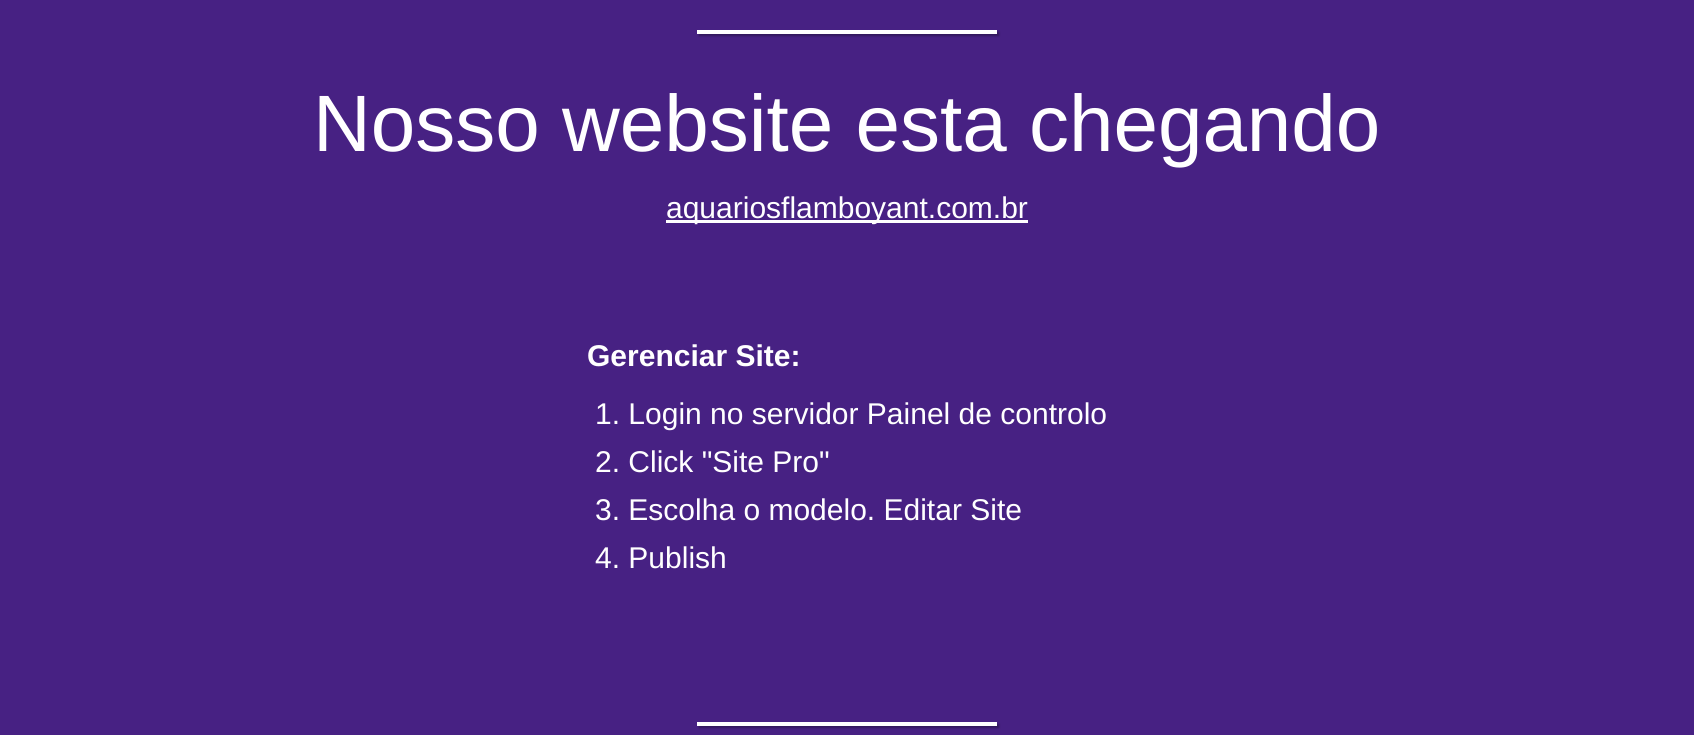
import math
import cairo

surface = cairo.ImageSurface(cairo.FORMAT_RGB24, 1694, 735)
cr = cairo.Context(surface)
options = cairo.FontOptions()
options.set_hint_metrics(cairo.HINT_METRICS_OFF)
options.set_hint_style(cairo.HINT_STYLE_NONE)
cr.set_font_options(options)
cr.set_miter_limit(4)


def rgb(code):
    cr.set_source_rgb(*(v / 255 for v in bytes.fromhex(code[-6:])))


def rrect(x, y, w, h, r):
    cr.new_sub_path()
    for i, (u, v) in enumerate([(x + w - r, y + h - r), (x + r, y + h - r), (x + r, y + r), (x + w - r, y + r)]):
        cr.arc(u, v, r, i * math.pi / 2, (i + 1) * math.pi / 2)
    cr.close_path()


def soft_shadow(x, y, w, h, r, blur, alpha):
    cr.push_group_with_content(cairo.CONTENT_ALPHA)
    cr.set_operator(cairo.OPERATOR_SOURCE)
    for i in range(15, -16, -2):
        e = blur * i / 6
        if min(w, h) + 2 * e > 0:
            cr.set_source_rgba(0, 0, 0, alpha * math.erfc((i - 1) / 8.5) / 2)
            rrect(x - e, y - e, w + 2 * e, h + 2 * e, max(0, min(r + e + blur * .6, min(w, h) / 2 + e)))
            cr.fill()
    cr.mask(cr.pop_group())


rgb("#472183")
cr.paint()
rgb("#000000")
soft_shadow(699, 32, 300, 4, 0, 1, 0.3)
rgb("#ffffff")
cr.rectangle(697, 30, 300, 4)
cr.fill()
cr.rectangle(666, 220, 362, 3)
cr.fill()
rgb("#000000")
soft_shadow(699, 724, 300, 4, 0, 1, 0.3)
rgb("#ffffff")
cr.rectangle(697, 722, 300, 4)
cr.fill()
cr.select_font_face("Liberation Sans")
cr.set_font_size(80)
cr.move_to(313, 151)
cr.show_text("Nosso website esta chegando")
cr.set_font_size(30)
cr.move_to(666, 218)
cr.show_text("aquariosflamboyant.com.br")
cr.select_font_face("Liberation Sans", cairo.FONT_SLANT_NORMAL, cairo.FONT_WEIGHT_BOLD)
cr.move_to(587, 366)
cr.show_text("Gerenciar Site:")
cr.select_font_face("Liberation Sans")
for x, y, s in [
    (595, 424, "1. Login no servidor Painel de controlo"),
    (595, 472, "2. Click \"Site Pro\""),
    (595, 520, "3. Escolha o modelo. Editar Site"),
    (595, 568, "4. Publish"),
]:
    cr.move_to(x, y)
    cr.show_text(s)
surface.write_to_png("page.png")
